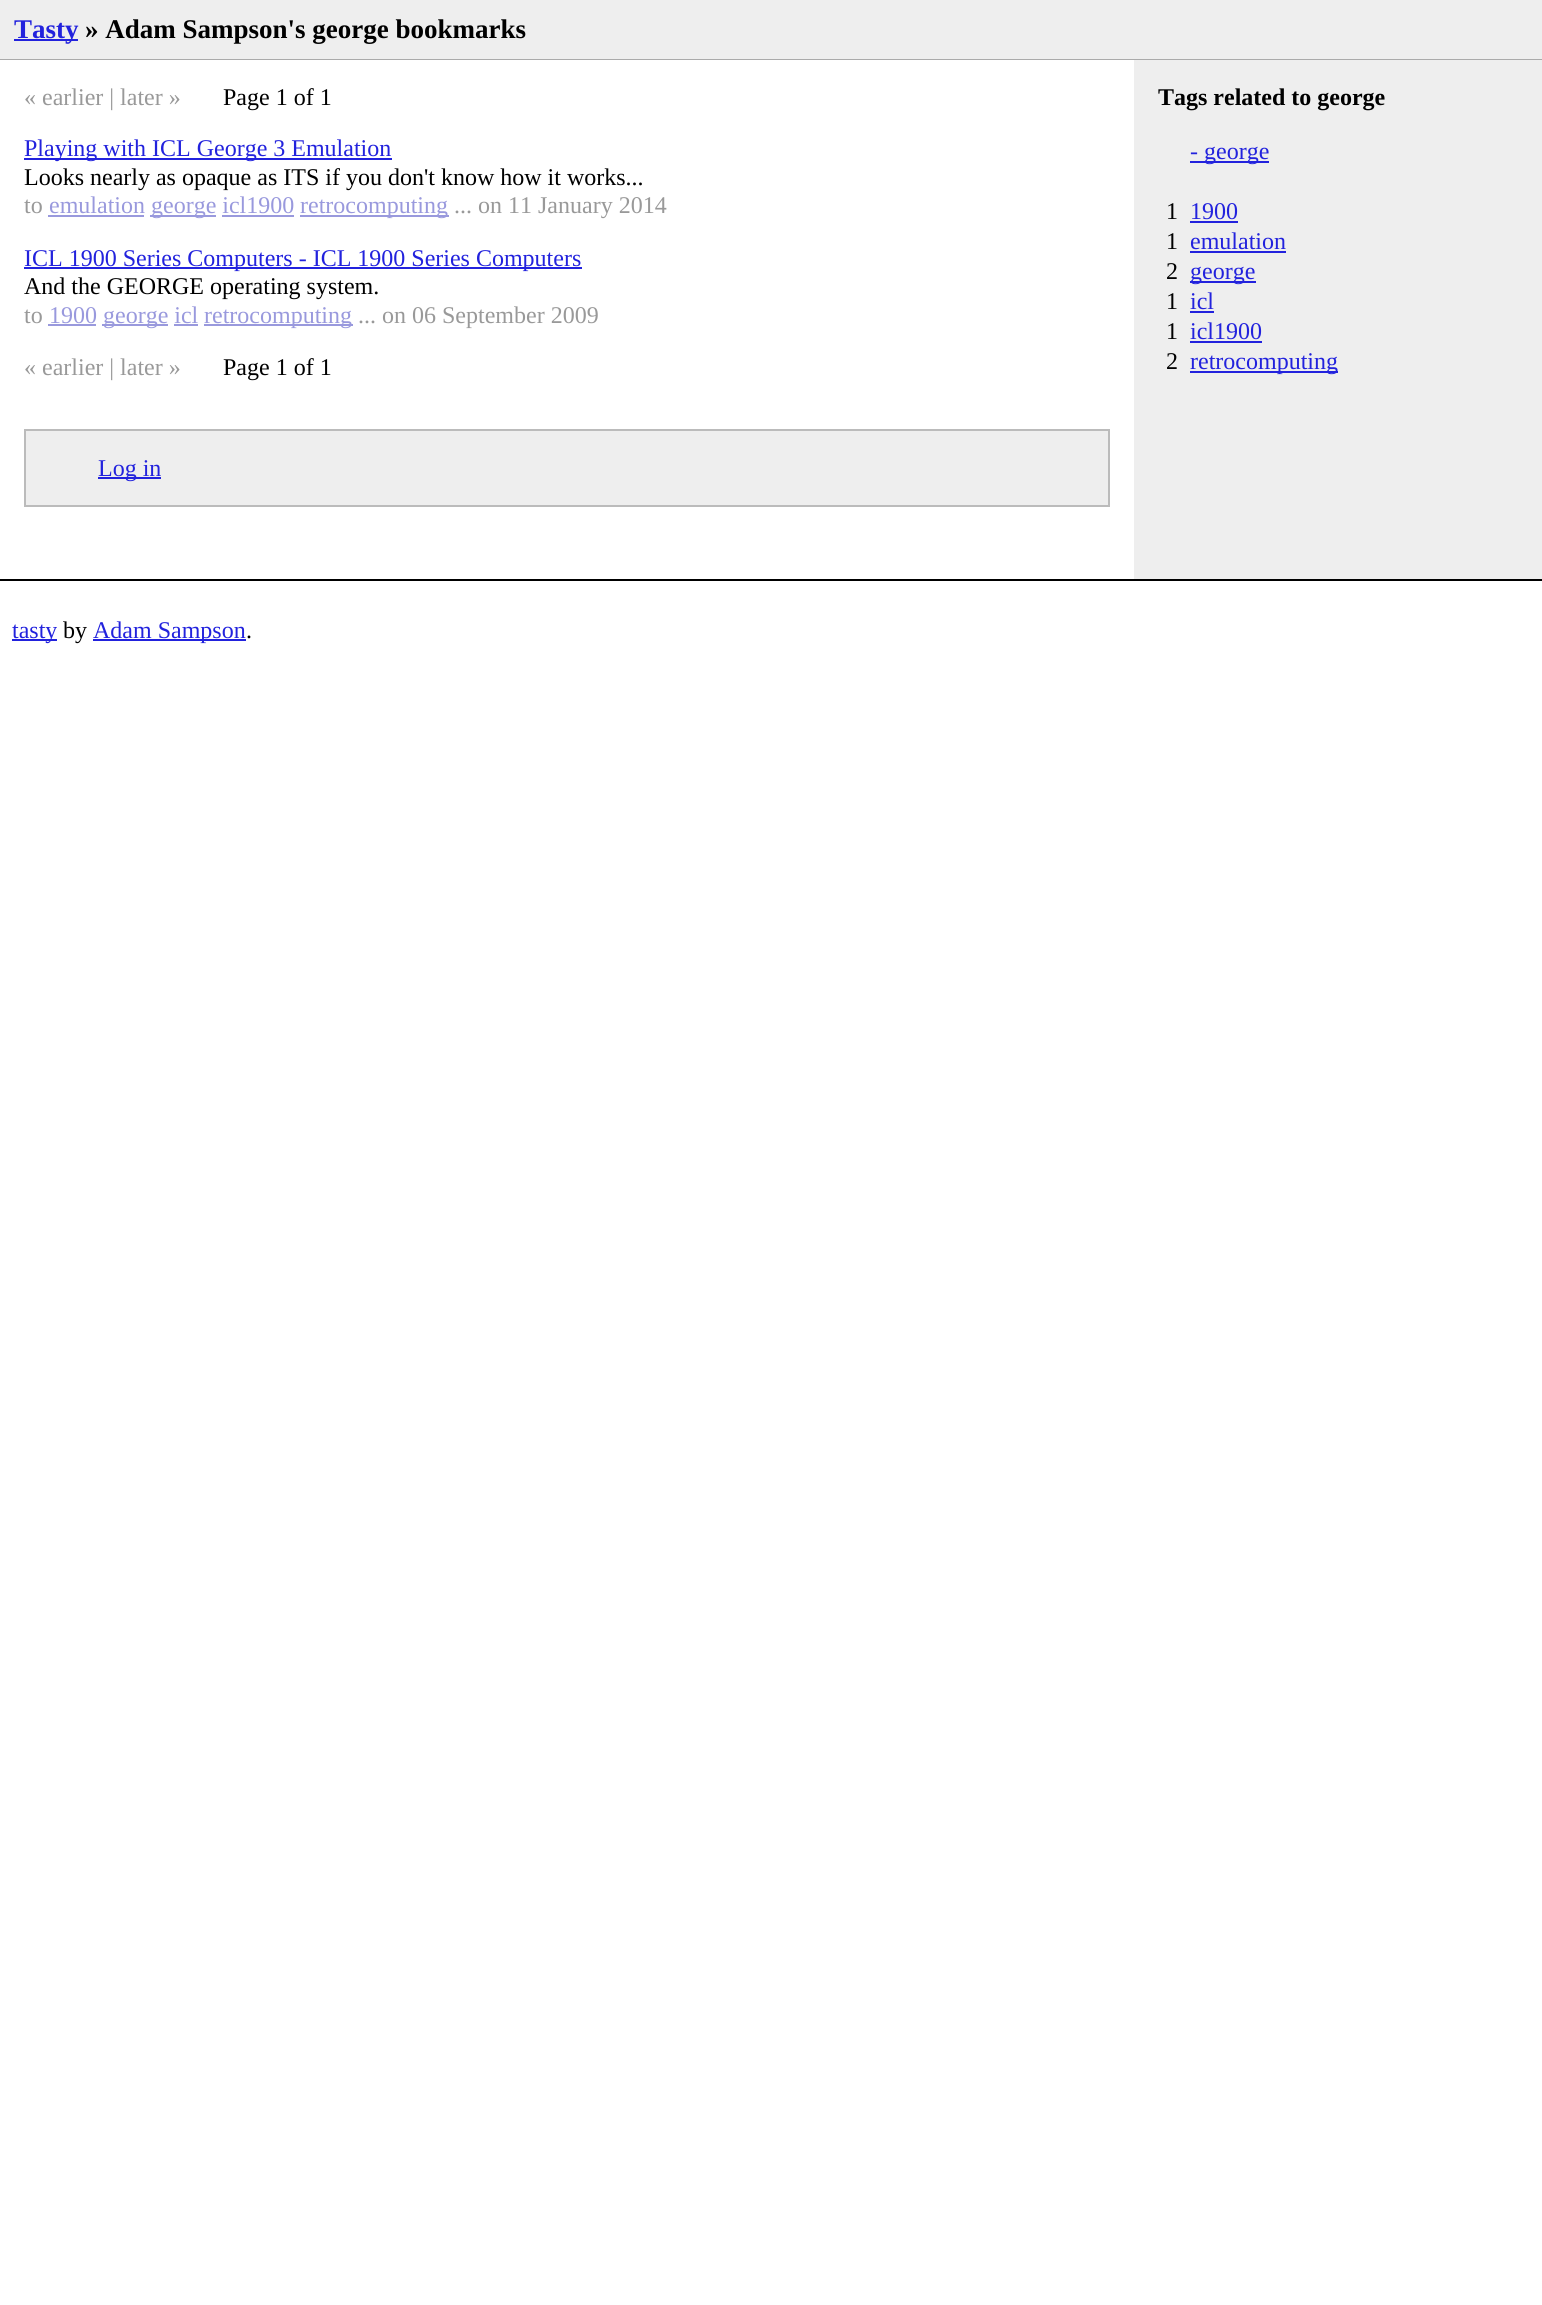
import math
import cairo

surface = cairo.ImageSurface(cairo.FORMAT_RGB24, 1542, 2305)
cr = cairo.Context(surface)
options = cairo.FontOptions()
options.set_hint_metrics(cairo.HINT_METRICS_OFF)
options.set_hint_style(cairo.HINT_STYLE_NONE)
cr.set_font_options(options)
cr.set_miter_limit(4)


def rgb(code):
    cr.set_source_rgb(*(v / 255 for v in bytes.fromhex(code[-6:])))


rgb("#ffffff")
cr.paint()
for x, y, w, h, color in [
    (0, 0, 1542, 59, "#eeeeee"),
    (0, 59, 1542, 1, "#aaaaaa"),
    (14, 39, 64, 2, "#2222dd"),
    (1134, 60, 408, 519, "#eeeeee"),
    (24, 158, 368, 2, "#2222dd"),
    (48, 215, 96, 2, "#9999dd"),
    (150, 215, 66, 2, "#9999dd"),
    (222, 215, 72, 2, "#9999dd"),
    (300, 215, 149, 2, "#9999dd"),
    (24, 267, 558, 2, "#2222dd"),
    (48, 324, 48, 2, "#9999dd"),
    (102, 324, 66, 2, "#9999dd"),
    (174, 324, 24, 2, "#9999dd"),
    (204, 324, 149, 2, "#9999dd"),
]:
    rgb(color)
    cr.rectangle(x, y, w, h)
    cr.fill()
rgb("#eeeeee")
cr.rectangle(25, 430, 1084, 76)
cr.fill_preserve()
rgb("#bbbbbb")
cr.stroke()
for x, y, w, h, color in [
    (98, 477, 63, 2, "#2222dd"),
    (1190, 161, 79, 2, "#2222dd"),
    (1190, 221, 48, 2, "#2222dd"),
    (1190, 251, 96, 2, "#2222dd"),
    (1190, 281, 66, 2, "#2222dd"),
    (1190, 311, 24, 2, "#2222dd"),
    (1190, 341, 72, 2, "#2222dd"),
    (1190, 371, 148, 2, "#2222dd"),
    (0, 579, 1542, 2, "#000000"),
    (12, 639, 45, 2, "#2222dd"),
    (93, 639, 153, 2, "#2222dd"),
]:
    rgb(color)
    cr.rectangle(x, y, w, h)
    cr.fill()
cr.select_font_face("Liberation Serif", cairo.FONT_SLANT_NORMAL, cairo.FONT_WEIGHT_BOLD)
cr.set_font_size(27)
cr.move_to(14, 38)
cr.show_text("Tasty")
rgb("#000000")
cr.move_to(85, 38)
cr.show_text("» Adam Sampson's george bookmarks")
cr.select_font_face("Liberation Serif")
cr.set_font_size(24)
rgb("#999999")
cr.move_to(24, 105)
cr.show_text("« earlier | later »")
rgb("#000000")
cr.move_to(223, 105)
cr.show_text("Page 1 of 1")
rgb("#2222dd")
cr.move_to(24, 156)
cr.show_text("Playing with ICL George 3 Emulation")
rgb("#000000")
cr.move_to(24, 185)
cr.show_text("Looks nearly as opaque as ITS if you don't know how it works...")
rgb("#999999")
cr.move_to(24, 213)
cr.show_text("to")
rgb("#9999dd")
for x, y, s in [
    (49, 213, "emulation"),
    (151, 213, "george icl1900"),
    (300, 213, "retrocomputing"),
]:
    cr.move_to(x, y)
    cr.show_text(s)
rgb("#999999")
cr.move_to(454, 213)
cr.show_text("... on 11 January 2014")
rgb("#2222dd")
cr.move_to(24, 266)
cr.show_text("ICL 1900 Series Computers - ICL 1900 Series Computers")
rgb("#000000")
cr.move_to(24, 294)
cr.show_text("And the GEORGE operating system.")
rgb("#999999")
cr.move_to(24, 323)
cr.show_text("to")
rgb("#9999dd")
for x, y, s in [
    (49, 323, "1900"),
    (103, 323, "george icl"),
    (204, 323, "retrocomputing"),
]:
    cr.move_to(x, y)
    cr.show_text(s)
rgb("#999999")
cr.move_to(358, 323)
cr.show_text("... on 06 September 2009")
cr.move_to(24, 375)
cr.show_text("« earlier | later »")
rgb("#000000")
cr.move_to(223, 375)
cr.show_text("Page 1 of 1")
rgb("#2222dd")
cr.move_to(98, 476)
cr.show_text("Log in")
cr.select_font_face("Liberation Serif", cairo.FONT_SLANT_NORMAL, cairo.FONT_WEIGHT_BOLD)
rgb("#000000")
cr.move_to(1158, 105)
cr.show_text("Tags related to george")
cr.select_font_face("Liberation Serif")
rgb("#2222dd")
cr.move_to(1190, 159)
cr.show_text("- george")
rgb("#000000")
cr.move_to(1166, 219)
cr.show_text("1")
rgb("#2222dd")
cr.move_to(1190, 219)
cr.show_text("1900")
rgb("#000000")
cr.move_to(1166, 249)
cr.show_text("1")
rgb("#2222dd")
cr.move_to(1190, 249)
cr.show_text("emulation")
rgb("#000000")
cr.move_to(1166, 279)
cr.show_text("2")
rgb("#2222dd")
cr.move_to(1190, 279)
cr.show_text("george")
rgb("#000000")
cr.move_to(1166, 309)
cr.show_text("1")
rgb("#2222dd")
cr.move_to(1190, 309)
cr.show_text("icl")
rgb("#000000")
cr.move_to(1166, 339)
cr.show_text("1")
rgb("#2222dd")
cr.move_to(1190, 339)
cr.show_text("icl1900")
rgb("#000000")
cr.move_to(1166, 369)
cr.show_text("2")
rgb("#2222dd")
cr.move_to(1190, 369)
cr.show_text("retrocomputing")
cr.move_to(12, 638)
cr.show_text("tasty")
rgb("#000000")
cr.move_to(63, 638)
cr.show_text("by")
rgb("#2222dd")
cr.move_to(93, 638)
cr.show_text("Adam Sampson")
rgb("#000000")
cr.move_to(246, 638)
cr.show_text(".")
surface.write_to_png("page.png")
